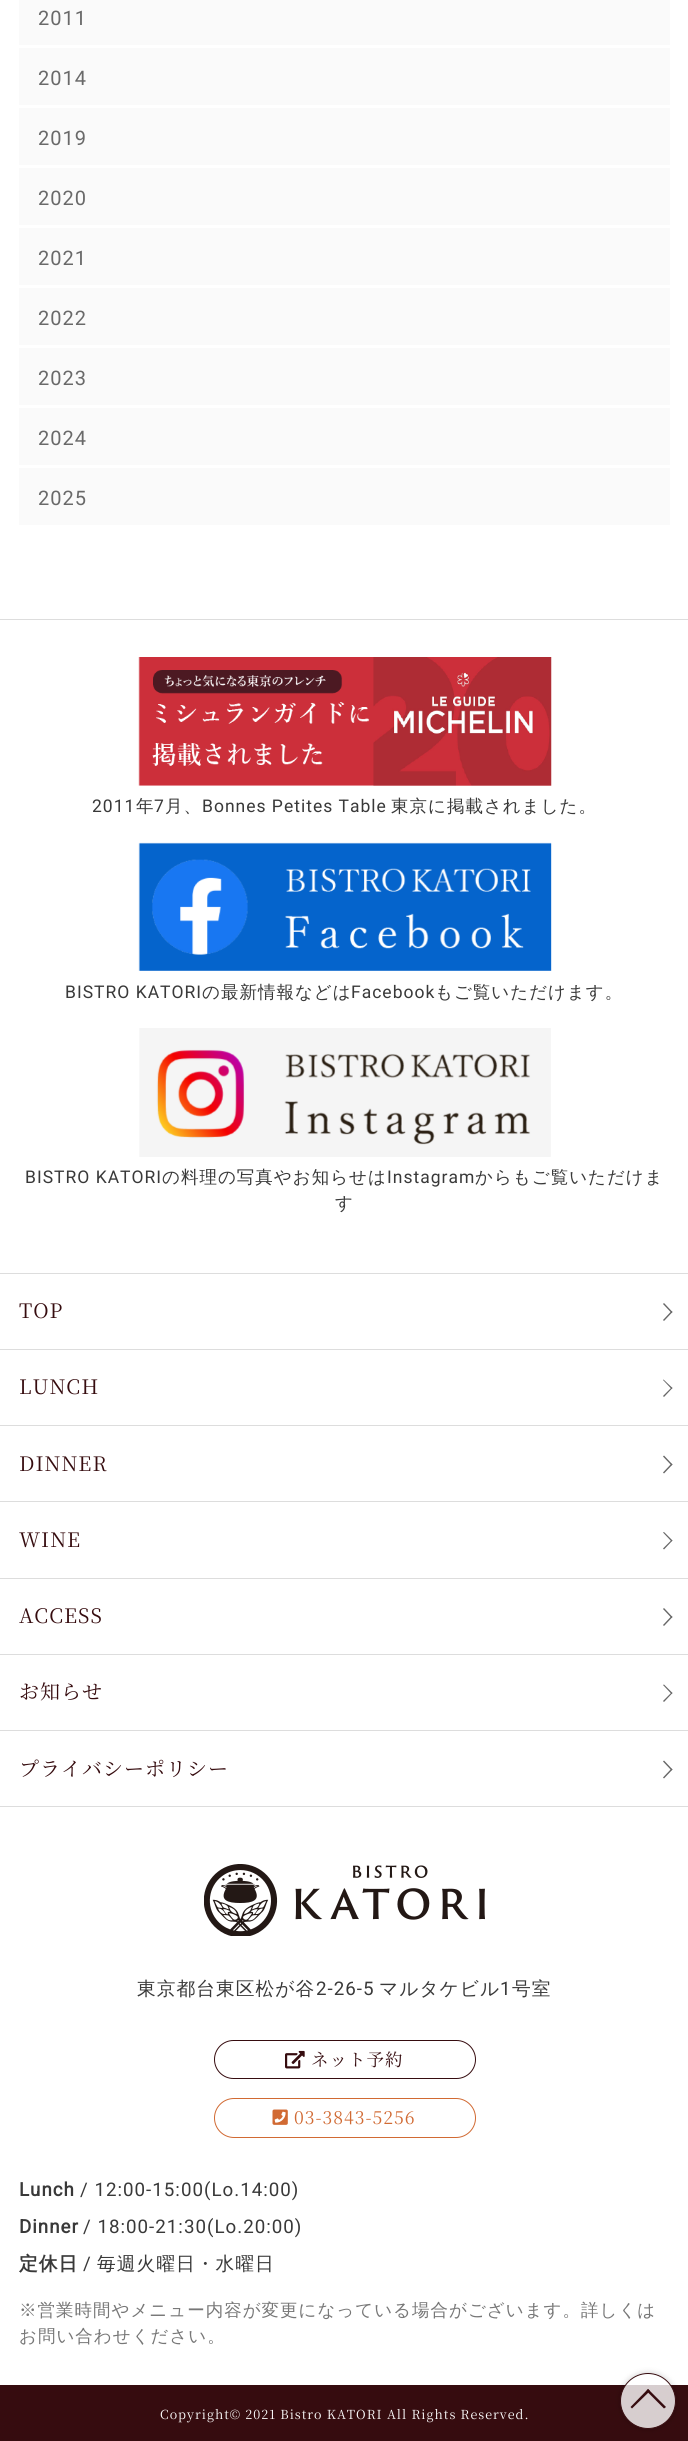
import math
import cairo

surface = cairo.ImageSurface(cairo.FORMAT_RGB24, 688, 2441)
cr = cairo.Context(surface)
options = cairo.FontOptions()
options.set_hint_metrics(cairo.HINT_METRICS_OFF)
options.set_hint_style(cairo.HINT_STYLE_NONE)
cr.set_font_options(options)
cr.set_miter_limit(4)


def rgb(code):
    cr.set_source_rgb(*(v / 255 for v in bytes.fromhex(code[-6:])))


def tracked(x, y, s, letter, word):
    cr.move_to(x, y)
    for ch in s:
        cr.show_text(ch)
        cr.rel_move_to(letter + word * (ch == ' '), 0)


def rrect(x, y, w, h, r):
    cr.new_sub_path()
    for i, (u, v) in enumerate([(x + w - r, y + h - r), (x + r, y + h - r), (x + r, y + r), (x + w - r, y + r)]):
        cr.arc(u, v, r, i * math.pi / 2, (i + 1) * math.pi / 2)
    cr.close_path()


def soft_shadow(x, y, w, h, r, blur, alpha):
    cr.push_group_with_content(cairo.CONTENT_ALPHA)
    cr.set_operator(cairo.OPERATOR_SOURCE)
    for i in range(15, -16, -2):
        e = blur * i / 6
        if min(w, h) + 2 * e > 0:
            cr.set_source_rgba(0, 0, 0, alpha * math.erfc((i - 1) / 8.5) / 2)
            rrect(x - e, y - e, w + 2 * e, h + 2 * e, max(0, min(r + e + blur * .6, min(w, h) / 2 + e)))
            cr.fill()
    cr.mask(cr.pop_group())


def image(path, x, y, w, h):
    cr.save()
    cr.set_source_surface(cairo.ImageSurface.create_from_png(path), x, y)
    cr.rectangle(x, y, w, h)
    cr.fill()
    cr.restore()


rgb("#ffffff")
cr.paint()
for x, y, w, h, color in [
    (19, 0, 651, 45, "#fafafa"),
    (19, 48, 651, 57, "#fafafa"),
    (19, 108, 651, 57, "#fafafa"),
    (19, 168, 651, 57, "#fafafa"),
    (19, 228, 651, 57, "#fafafa"),
    (19, 288, 651, 57, "#fafafa"),
    (19, 348, 651, 57, "#fafafa"),
    (19, 408, 651, 57, "#fafafa"),
    (19, 468, 651, 57, "#fafafa"),
    (0, 619, 688, 1, "#dddddd"),
]:
    rgb(color)
    cr.rectangle(x, y, w, h)
    cr.fill()
image("img/1.png", 138, 657, 414, 129)
image("img/2.png", 138, 842, 414, 129)
image("img/3.png", 139, 1028, 412, 129)
cr.rectangle(0, 1273, 688, 1)
cr.fill()
cr.rectangle(0, 1349, 688, 1)
cr.fill()
rgb("#666666")
cr.new_path()
cr.move_to(663, 1304)
cr.line_to(664, 1303)
cr.line_to(672.5, 1312)
cr.line_to(671.5, 1313)
cr.close_path()
cr.fill()
cr.new_path()
cr.move_to(663, 1320)
cr.line_to(671.5, 1311)
cr.line_to(672.5, 1312)
cr.line_to(664, 1321)
cr.close_path()
cr.fill()
rgb("#dddddd")
cr.rectangle(0, 1425, 688, 1)
cr.fill()
rgb("#666666")
cr.new_path()
cr.move_to(663, 1380)
cr.line_to(663.5, 1379.5)
cr.line_to(672.5, 1388)
cr.line_to(671.5, 1389)
cr.close_path()
cr.fill()
cr.new_path()
cr.move_to(663, 1396)
cr.line_to(671.5, 1387.5)
cr.line_to(672.5, 1388)
cr.line_to(664, 1397)
cr.close_path()
cr.fill()
rgb("#dddddd")
cr.rectangle(0, 1501, 688, 1)
cr.fill()
rgb("#666666")
cr.new_path()
cr.move_to(663, 1456.5)
cr.line_to(664, 1455.5)
cr.line_to(672.5, 1464.5)
cr.line_to(671.5, 1465.5)
cr.close_path()
cr.fill()
cr.new_path()
cr.move_to(663, 1472.5)
cr.line_to(671.5, 1463.5)
cr.line_to(672.5, 1464.5)
cr.line_to(664, 1473.5)
cr.close_path()
cr.fill()
rgb("#dddddd")
cr.rectangle(0, 1578, 688, 1)
cr.fill()
rgb("#666666")
cr.new_path()
cr.move_to(663, 1532.5)
cr.line_to(664, 1532)
cr.line_to(672.5, 1540.5)
cr.line_to(671.5, 1541.5)
cr.close_path()
cr.fill()
cr.new_path()
cr.move_to(663, 1548.5)
cr.line_to(671.5, 1540)
cr.line_to(672.5, 1540.5)
cr.line_to(664, 1549.5)
cr.close_path()
cr.fill()
rgb("#dddddd")
cr.rectangle(0, 1654, 688, 1)
cr.fill()
rgb("#666666")
cr.new_path()
cr.move_to(663, 1609)
cr.line_to(664, 1608)
cr.line_to(672.5, 1617)
cr.line_to(671.5, 1618)
cr.close_path()
cr.fill()
cr.new_path()
cr.move_to(663, 1625)
cr.line_to(671.5, 1616)
cr.line_to(672.5, 1617)
cr.line_to(664, 1626)
cr.close_path()
cr.fill()
rgb("#dddddd")
cr.rectangle(0, 1730, 688, 1)
cr.fill()
rgb("#666666")
cr.new_path()
cr.move_to(663, 1685)
cr.line_to(664, 1684.5)
cr.line_to(672.5, 1693)
cr.line_to(671.5, 1694)
cr.close_path()
cr.fill()
cr.new_path()
cr.move_to(663, 1701)
cr.line_to(671.5, 1692.5)
cr.line_to(672.5, 1693)
cr.line_to(664, 1702)
cr.close_path()
cr.fill()
rgb("#dddddd")
cr.rectangle(0, 1806, 688, 1)
cr.fill()
rgb("#666666")
cr.new_path()
cr.move_to(663, 1761.5)
cr.line_to(664, 1760.5)
cr.line_to(672.5, 1769.5)
cr.line_to(671.5, 1770.5)
cr.close_path()
cr.fill()
cr.new_path()
cr.move_to(663, 1777.5)
cr.line_to(671.5, 1768.5)
cr.line_to(672.5, 1769.5)
cr.line_to(664, 1778.5)
cr.close_path()
cr.fill()
image("img/4.png", 204, 1864, 281, 72)
rrect(214.5, 2040.5, 261, 38, 19)
rgb("#360c0f")
cr.set_line_width(1)
cr.stroke()
image("img/5.png", 285, 2050, 20, 19)
rrect(214.5, 2098.5, 261, 39, 19.5)
rgb("#d16a33")
cr.stroke()
image("img/6.png", 272, 2109, 16, 16)
rgb("#360c0f")
cr.rectangle(0, 2385, 688, 56)
cr.fill()
cr.save()
cr.set_fill_rule(cairo.FILL_RULE_EVEN_ODD)
cr.new_path()
cr.move_to(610, 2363)
cr.line_to(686, 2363)
cr.line_to(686, 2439)
cr.line_to(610, 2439)
cr.close_path()
cr.move_to(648, 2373)
cr.curve_to(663.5, 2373, 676, 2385.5, 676, 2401)
cr.curve_to(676, 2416.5, 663.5, 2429, 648, 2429)
cr.curve_to(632.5, 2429, 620, 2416.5, 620, 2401)
cr.curve_to(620, 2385.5, 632.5, 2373, 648, 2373)
cr.close_path()
cr.clip()
rgb("#000000")
soft_shadow(620, 2373, 56, 56, 28, 3, 0.2)
cr.restore()
cr.set_source_rgba(1, 1, 1, 0.8)
cr.arc(648, 2401, 27.5, 0, 2 * math.pi)
cr.fill_preserve()
rgb("#360c0f")
cr.stroke()
cr.new_path()
cr.move_to(632, 2408.5)
cr.line_to(630.5, 2407)
cr.line_to(648, 2389)
cr.line_to(650, 2391)
cr.close_path()
cr.fill()
cr.new_path()
cr.move_to(664, 2408.5)
cr.line_to(646.5, 2391)
cr.line_to(648, 2389)
cr.line_to(666, 2407)
cr.close_path()
cr.fill()
cr.select_font_face("Roboto")
cr.set_font_size(20)
rgb("#696969")
for x, y, s in [
    (38, 25, "2011"),
    (38, 85, "2014"),
    (38, 145, "2019"),
    (38, 205, "2020"),
    (38, 265, "2021"),
    (38, 325, "2022"),
    (38, 385, "2023"),
    (38, 445, "2024"),
    (38, 505, "2025"),
]:
    tracked(x, y, s, 1, 0)
cr.set_font_size(17.5)
rgb("#393939")
tracked(92, 812, "2011", 1, 0)
cr.select_font_face("WenQuanYi Zen Hei Medium")
tracked(136, 812, "年", 1, 0)
cr.select_font_face("Roboto")
tracked(154, 812, "7", 1, 0)
cr.select_font_face("WenQuanYi Zen Hei Medium")
tracked(165, 812, "月、", 1, 0)
cr.select_font_face("Roboto")
tracked(202, 812, "Bonnes Petites Table", 1, 0)
cr.select_font_face("WenQuanYi Zen Hei Medium")
tracked(391, 812, "東京に掲載されました。", 1, 0)
cr.select_font_face("Roboto")
tracked(65, 998, "BISTRO KATORI", 1, 0)
cr.select_font_face("WenQuanYi Zen Hei Medium")
tracked(202, 998, "の最新情報などは", 1, 0)
cr.select_font_face("Roboto")
tracked(351, 998, "Facebook", 1, 0)
cr.select_font_face("WenQuanYi Zen Hei Medium")
tracked(435, 998, "もご覧いただけます。", 1, 0)
cr.select_font_face("Roboto")
tracked(25, 1183, "BISTRO KATORI", 1, 0)
cr.select_font_face("WenQuanYi Zen Hei Medium")
tracked(162, 1183, "の料理の写真やお知らせは", 1, 0)
cr.select_font_face("Roboto")
tracked(387, 1183, "Instagram", 1, 0)
cr.select_font_face("WenQuanYi Zen Hei Medium")
tracked(475, 1183, "からもご覧いただけま", 1, 0)
tracked(335, 1209, "す", 1, 0)
cr.select_font_face("Noto Serif JP ExtraLight")
cr.set_font_size(20)
rgb("#360c0f")
for x, y, s in [
    (19, 1318, "TOP"),
    (19, 1394, "LUNCH"),
    (19, 1471, "DINNER"),
    (19, 1547, "WINE"),
    (19, 1623, "ACCESS"),
    (19, 1699, "お知らせ"),
    (19, 1776, "プライバシーポリシー"),
]:
    tracked(x, y, s, 1, 0)
cr.select_font_face("WenQuanYi Zen Hei Medium")
cr.set_font_size(18.75)
rgb("#393939")
tracked(137, 1995, "東京都台東区松が谷", 1, 0)
cr.select_font_face("Roboto")
tracked(316, 1995, "2-26-5", 1, 0)
cr.select_font_face("WenQuanYi Zen Hei Medium")
tracked(379, 1995, "マルタケビル", 1, 0)
cr.select_font_face("Roboto")
tracked(500, 1995, "1", 1, 0)
cr.select_font_face("WenQuanYi Zen Hei Medium")
tracked(512, 1995, "号室", 1, 0)
cr.select_font_face("Noto Serif JP ExtraLight")
cr.set_font_size(17.5)
rgb("#360c0f")
tracked(311, 2066, "ネット予約", 1, 0)
rgb("#d16a33")
tracked(294, 2124, "03-3843-5256", 1, 0)
cr.select_font_face("Roboto", cairo.FONT_SLANT_NORMAL, cairo.FONT_WEIGHT_BOLD)
cr.set_font_size(18.75)
rgb("#393939")
tracked(19, 2196, "Lunch", 1, 0)
cr.select_font_face("Roboto")
tracked(80, 2196, "/ 12:00-15:00(Lo.14:00)", 1, 0)
cr.select_font_face("Roboto", cairo.FONT_SLANT_NORMAL, cairo.FONT_WEIGHT_BOLD)
tracked(19, 2233, "Dinner", 1, 0)
cr.select_font_face("Roboto")
tracked(83, 2233, "/ 18:00-21:30(Lo.20:00)", 1, 0)
cr.select_font_face("WenQuanYi Zen Hei", cairo.FONT_SLANT_NORMAL, cairo.FONT_WEIGHT_BOLD)
tracked(19, 2270, "定休日", 1, 0)
cr.select_font_face("Roboto")
tracked(83, 2270, "/", 1, 0)
cr.select_font_face("WenQuanYi Zen Hei Medium")
tracked(97, 2270, "毎週火曜日・水曜日", 1, 0)
cr.set_font_size(17.5)
rgb("#777777")
tracked(19, 2316, "※営業時間やメニュー内容が変更になっている場合がございます。詳しくは", 1, 0)
tracked(19, 2342, "お問い合わせください。", 1, 0)
cr.select_font_face("Noto Serif JP ExtraLight")
cr.set_font_size(12.5)
rgb("#ffffff")
tracked(160, 2419, "Copyright© 2021 Bistro KATORI All Rights Reserved.", 1, 0)
surface.write_to_png("page.png")
